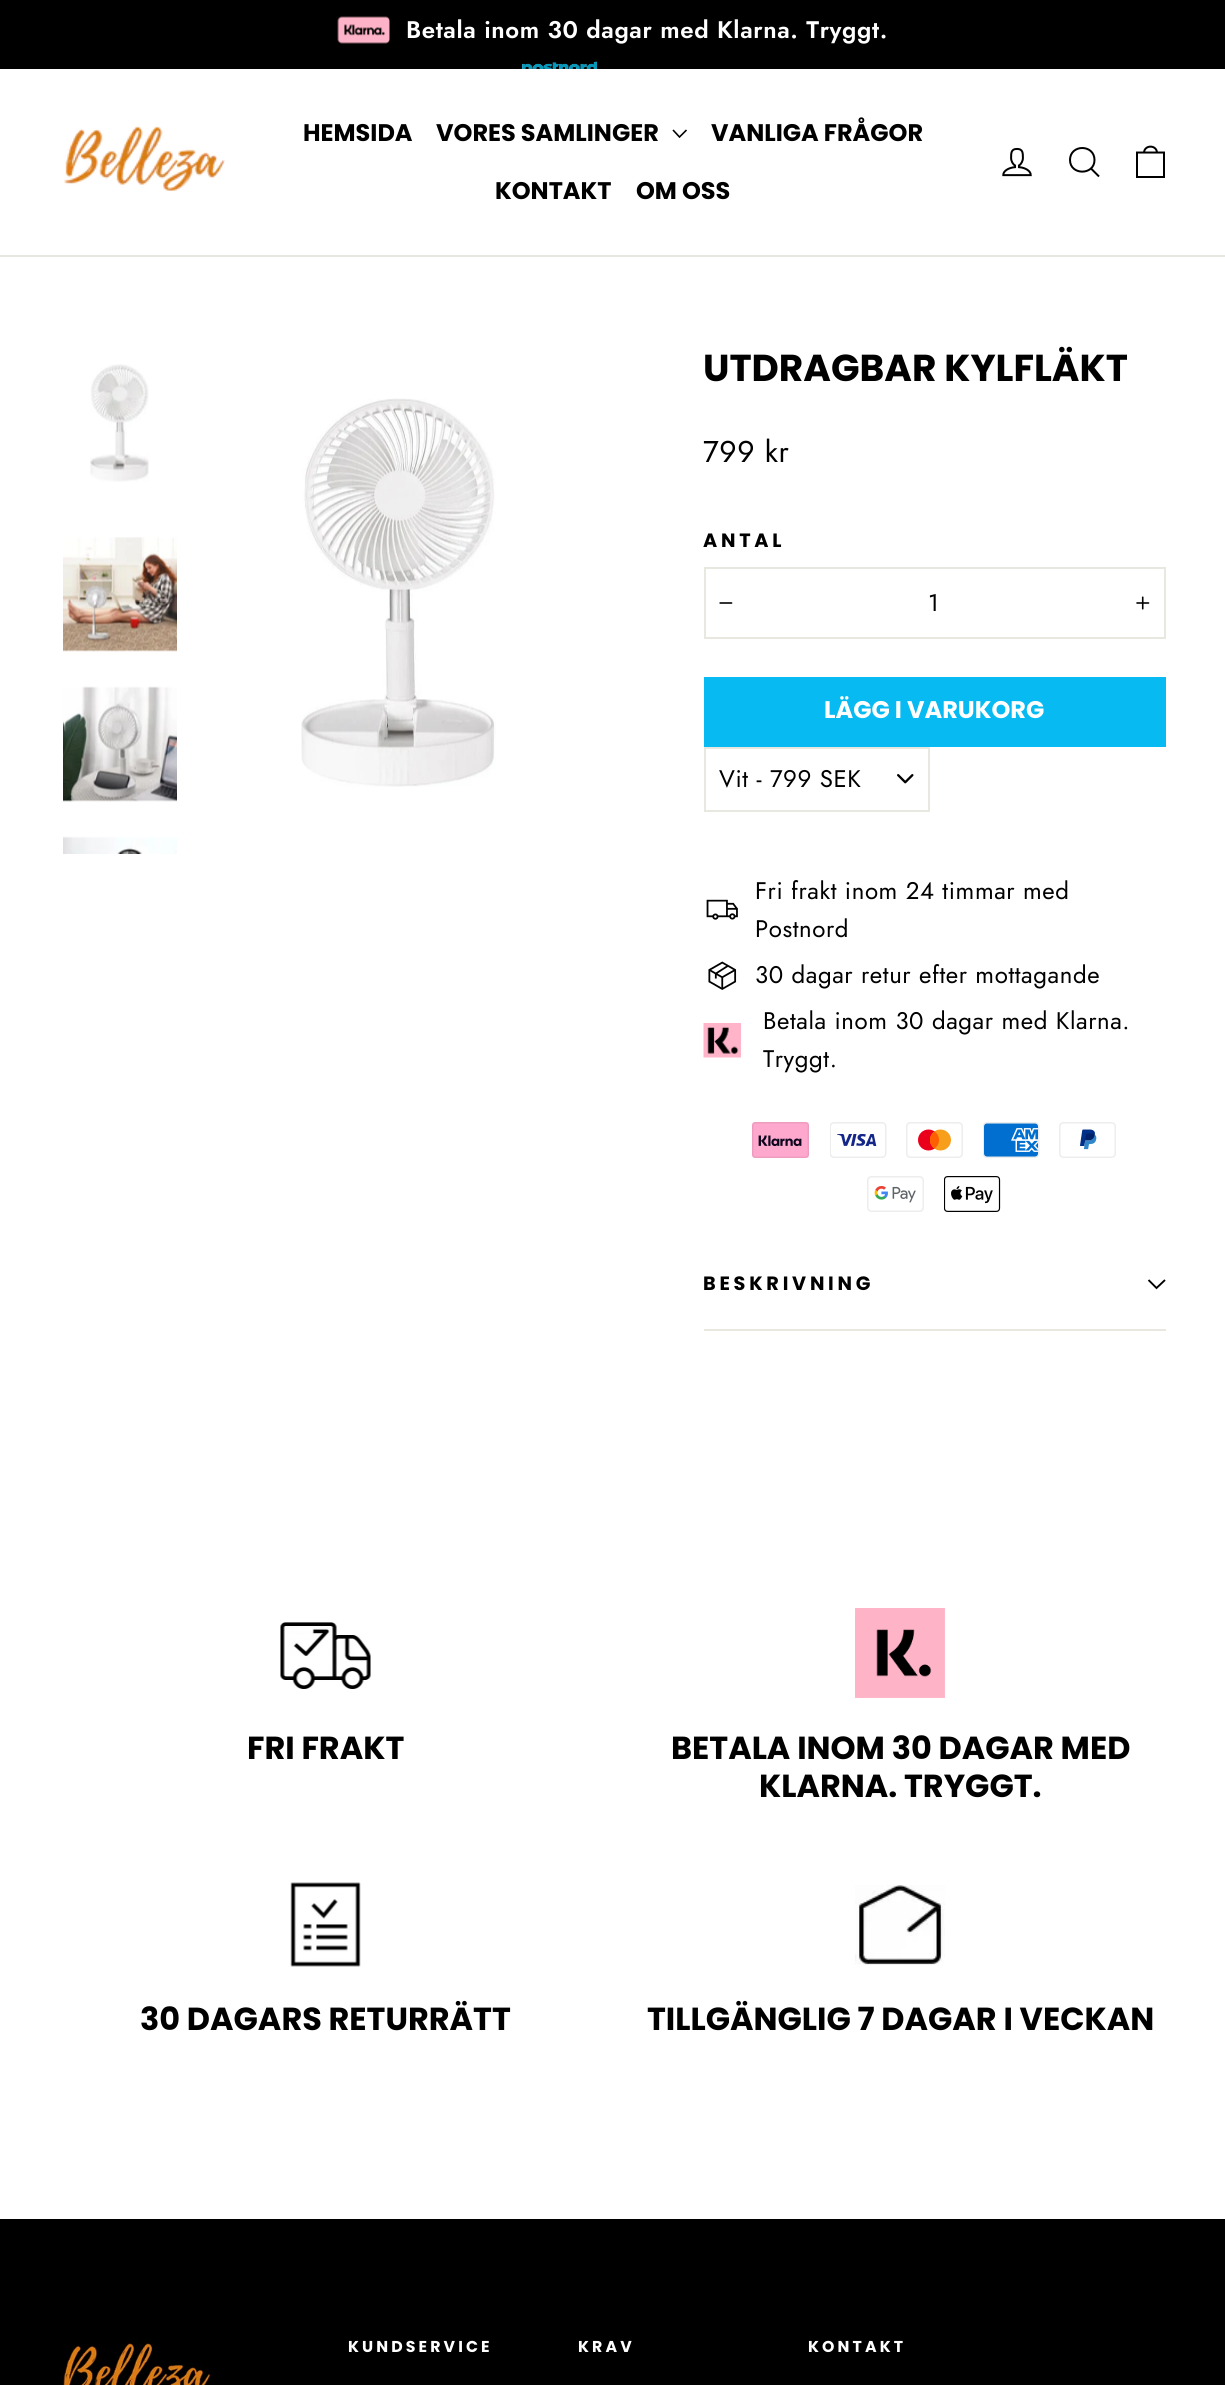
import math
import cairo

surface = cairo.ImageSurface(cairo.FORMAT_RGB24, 1225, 2385)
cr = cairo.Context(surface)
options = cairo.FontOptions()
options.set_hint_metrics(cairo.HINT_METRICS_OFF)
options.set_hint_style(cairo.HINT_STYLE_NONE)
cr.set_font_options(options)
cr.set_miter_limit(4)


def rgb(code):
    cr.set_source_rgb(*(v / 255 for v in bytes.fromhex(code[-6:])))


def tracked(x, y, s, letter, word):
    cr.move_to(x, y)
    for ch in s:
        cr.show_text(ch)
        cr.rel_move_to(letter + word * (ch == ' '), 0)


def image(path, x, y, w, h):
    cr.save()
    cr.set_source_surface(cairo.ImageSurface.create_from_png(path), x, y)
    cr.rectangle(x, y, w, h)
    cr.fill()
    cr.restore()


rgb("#ffffff")
cr.paint()
rgb("#000000")
cr.rectangle(0, 0, 1225, 69)
cr.fill()
image("img/1.png", 337, 16, 53, 28)
image("img/2.png", 522, 61, 75, 8)
rgb("#e8e8e1")
cr.rectangle(0, 255, 1225, 2)
cr.fill()
image("img/3.png", 64, 126, 161, 65)
cr.new_path()
cr.move_to(673, 130)
cr.line_to(679.5, 137)
cr.line_to(686.5, 130)
rgb("#000000")
cr.set_line_width(1.6)
cr.stroke()
image("img/4.png", 1002, 147, 30, 30)
cr.new_path()
cr.move_to(1094.5, 160)
cr.curve_to(1094.5, 175.5, 1070, 175.5, 1070, 160)
cr.curve_to(1070, 144, 1094.5, 144, 1094.5, 160)
cr.close_path()
cr.move_to(1099, 176.5)
cr.line_to(1091, 168.5)
cr.set_line_width(2)
cr.stroke()
cr.new_path()
cr.move_to(1137, 152.5)
cr.line_to(1164, 152.5)
cr.line_to(1164, 177)
cr.line_to(1137, 177)
cr.close_path()
cr.move_to(1144, 153)
cr.curve_to(1144, 144.5, 1157, 144.5, 1157, 153)
cr.stroke()
image("img/5.png", 90, 364, 59, 118)
image("img/6.png", 63, 537, 114, 115)
image("img/7.png", 63, 686, 114, 116)
image("img/8.png", 63, 836, 114, 18)
image("img/9.png", 301, 398, 195, 389)
cr.rectangle(705, 568, 460, 70)
rgb("#e8e8e1")
cr.stroke()
image("img/10.png", 719, 602, 14, 2)
image("img/11.png", 1136, 596, 14, 14)
rgb("#07bbf2")
cr.rectangle(704, 677, 462, 70)
cr.fill()
image("img/12.png", 897, 774, 17, 10)
cr.rectangle(705, 748, 224, 63)
rgb("#e8e8e1")
cr.stroke()
image("img/13.png", 706, 899, 32, 21)
image("img/14.png", 708, 961, 29, 29)
image("img/15.png", 703, 1023, 38, 35)
image("img/16.png", 752, 1122, 57, 36)
image("img/17.png", 830, 1122, 57, 36)
image("img/18.png", 906, 1122, 57, 36)
image("img/19.png", 983, 1122, 57, 36)
image("img/20.png", 1059, 1122, 57, 36)
image("img/21.png", 867, 1176, 57, 36)
image("img/22.png", 944, 1176, 57, 36)
cr.rectangle(704, 1329, 462, 2)
cr.fill()
cr.new_path()
cr.move_to(1148.5, 1280)
cr.line_to(1156.5, 1288)
cr.line_to(1165, 1280)
rgb("#000000")
cr.set_line_width(1.9)
cr.stroke()
image("img/23.png", 280, 1622, 91, 68)
image("img/24.png", 855, 1608, 90, 90)
image("img/25.png", 290, 1882, 71, 85)
image("img/26.png", 855, 1885, 90, 80)
cr.rectangle(0, 2219, 1225, 166)
cr.fill()
image("img/27.png", 60, 2338, 151, 47)
cr.select_font_face("Jost SemiBold")
cr.set_font_size(24)
rgb("#ffffff")
tracked(406, 38, "Betala inom 30 dagar med Klarna. Tryggt.", 0.6, 0)
cr.select_font_face("Poppins", cairo.FONT_SLANT_NORMAL, cairo.FONT_WEIGHT_BOLD)
rgb("#000000")
for x, y, s in [
    (303, 141, "HEMSIDA"),
    (436, 141, "VORES SAMLINGER"),
    (711, 141, "VANLIGA FRÅGOR"),
    (495, 199, "KONTAKT"),
    (636, 199, "OM OSS"),
]:
    cr.move_to(x, y)
    cr.show_text(s)
cr.set_font_size(37.5)
cr.move_to(703, 381)
cr.show_text("UTDRAGBAR KYLFLÄKT")
cr.select_font_face("Jost")
cr.set_font_size(30)
tracked(703, 462, "799 kr", 0.6, 0)
cr.select_font_face("Poppins", cairo.FONT_SLANT_NORMAL, cairo.FONT_WEIGHT_BOLD)
cr.set_font_size(19.25)
tracked(703, 547, "ANTAL", 3.75, 0)
cr.select_font_face("Jost")
cr.set_font_size(24)
tracked(928, 611, "1", 0.6, 0)
cr.select_font_face("Poppins", cairo.FONT_SLANT_NORMAL, cairo.FONT_WEIGHT_BOLD)
rgb("#ffffff")
cr.move_to(824, 718)
cr.show_text("LÄGG I VARUKORG")
cr.select_font_face("Jost")
rgb("#000000")
for x, y, s in [
    (719, 787, "Vit - 799 SEK"),
    (755, 899, "Fri frakt inom 24 timmar med"),
    (755, 937, "Postnord"),
    (755, 983, "30 dagar retur efter mottagande"),
    (763, 1029, "Betala inom 30 dagar med Klarna."),
    (763, 1067, "Tryggt."),
]:
    tracked(x, y, s, 0.6, 0)
cr.select_font_face("Poppins", cairo.FONT_SLANT_NORMAL, cairo.FONT_WEIGHT_BOLD)
cr.set_font_size(19.25)
tracked(703, 1290, "BESKRIVNING", 3.75, 0)
cr.set_font_size(31.9)
for x, y, s in [
    (247, 1759, "FRI FRAKT"),
    (671, 1759, "BETALA INOM 30 DAGAR MED"),
    (759, 1797, "KLARNA. TRYGGT."),
    (140, 2030, "30 DAGARS RETURRÄTT"),
    (647, 2030, "TILLGÄNGLIG 7 DAGAR I VECKAN"),
]:
    cr.move_to(x, y)
    cr.show_text(s)
cr.set_font_size(15.75)
rgb("#ffffff")
for x, y, s in [
    (348, 2352, "KUNDSERVICE"),
    (578, 2352, "KRAV"),
    (808, 2352, "KONTAKT"),
]:
    tracked(x, y, s, 3.1, 0)
surface.write_to_png("page.png")
